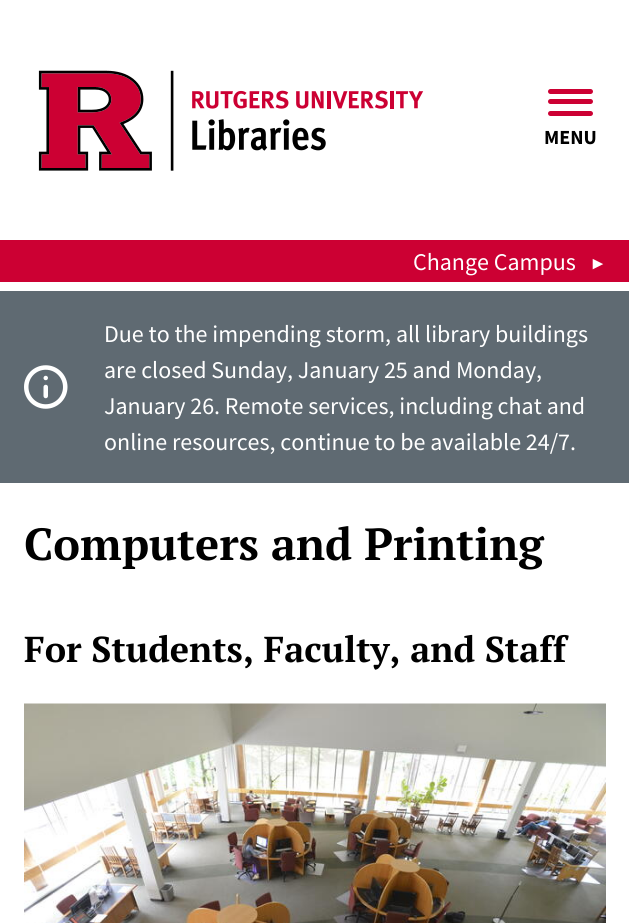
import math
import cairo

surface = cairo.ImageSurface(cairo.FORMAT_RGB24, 629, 923)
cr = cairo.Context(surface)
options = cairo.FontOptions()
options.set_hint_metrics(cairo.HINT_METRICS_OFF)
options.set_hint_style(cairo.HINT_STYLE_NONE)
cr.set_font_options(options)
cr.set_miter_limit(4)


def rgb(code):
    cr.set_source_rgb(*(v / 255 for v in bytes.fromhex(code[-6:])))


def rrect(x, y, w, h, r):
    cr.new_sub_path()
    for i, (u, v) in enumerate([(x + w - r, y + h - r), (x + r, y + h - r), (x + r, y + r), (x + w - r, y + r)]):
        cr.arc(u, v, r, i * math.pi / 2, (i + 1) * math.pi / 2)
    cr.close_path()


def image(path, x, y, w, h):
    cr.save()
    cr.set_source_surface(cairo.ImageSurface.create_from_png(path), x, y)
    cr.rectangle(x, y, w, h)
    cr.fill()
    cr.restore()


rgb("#ffffff")
cr.paint()
image("img/1.png", 38, 70, 386, 101)
rgb("#cc0033")
rrect(548, 99, 45, 5, 2.5)
cr.fill()
rrect(548, 89, 45, 5, 2.5)
cr.fill()
rrect(548, 111, 45, 5, 2.5)
cr.fill()
cr.rectangle(0, 240, 629, 42)
cr.fill()
rgb("#5f6a72")
cr.rectangle(0, 291, 629, 192)
cr.fill()
image("img/2.png", 24, 365, 44, 44)
image("img/3.png", 24, 703, 582, 220)
cr.select_font_face("Source Sans Pro", cairo.FONT_SLANT_NORMAL, cairo.FONT_WEIGHT_BOLD)
cr.set_font_size(20)
rgb("#000000")
cr.move_to(544, 144)
cr.show_text("MENU")
cr.select_font_face("Source Sans Pro")
cr.set_font_size(24)
rgb("#ffffff")
cr.move_to(413, 270)
cr.show_text("Change Campus")
cr.select_font_face("Liberation Sans")
cr.set_font_size(18)
cr.save()
cr.translate(603, 273)
cr.rotate(-90 * math.pi / 180)
cr.move_to(0, 0)
cr.show_text("▼")
cr.restore()
cr.select_font_face("Source Sans Pro")
cr.set_font_size(24)
for x, y, s in [
    (104, 342, "Due to the impending storm, all library buildings"),
    (104, 378, "are closed Sunday, January 25 and Monday,"),
    (104, 414, "January 26. Remote services, including chat and"),
    (104, 450, "online resources, continue to be available 24/7."),
]:
    cr.move_to(x, y)
    cr.show_text(s)
cr.select_font_face("PT Serif", cairo.FONT_SLANT_NORMAL, cairo.FONT_WEIGHT_BOLD)
cr.set_font_size(45)
rgb("#000000")
cr.move_to(24, 560)
cr.show_text("Computers and Printing")
cr.set_font_size(36)
cr.move_to(24, 662)
cr.show_text("For Students, Faculty, and Staff")
surface.write_to_png("page.png")
